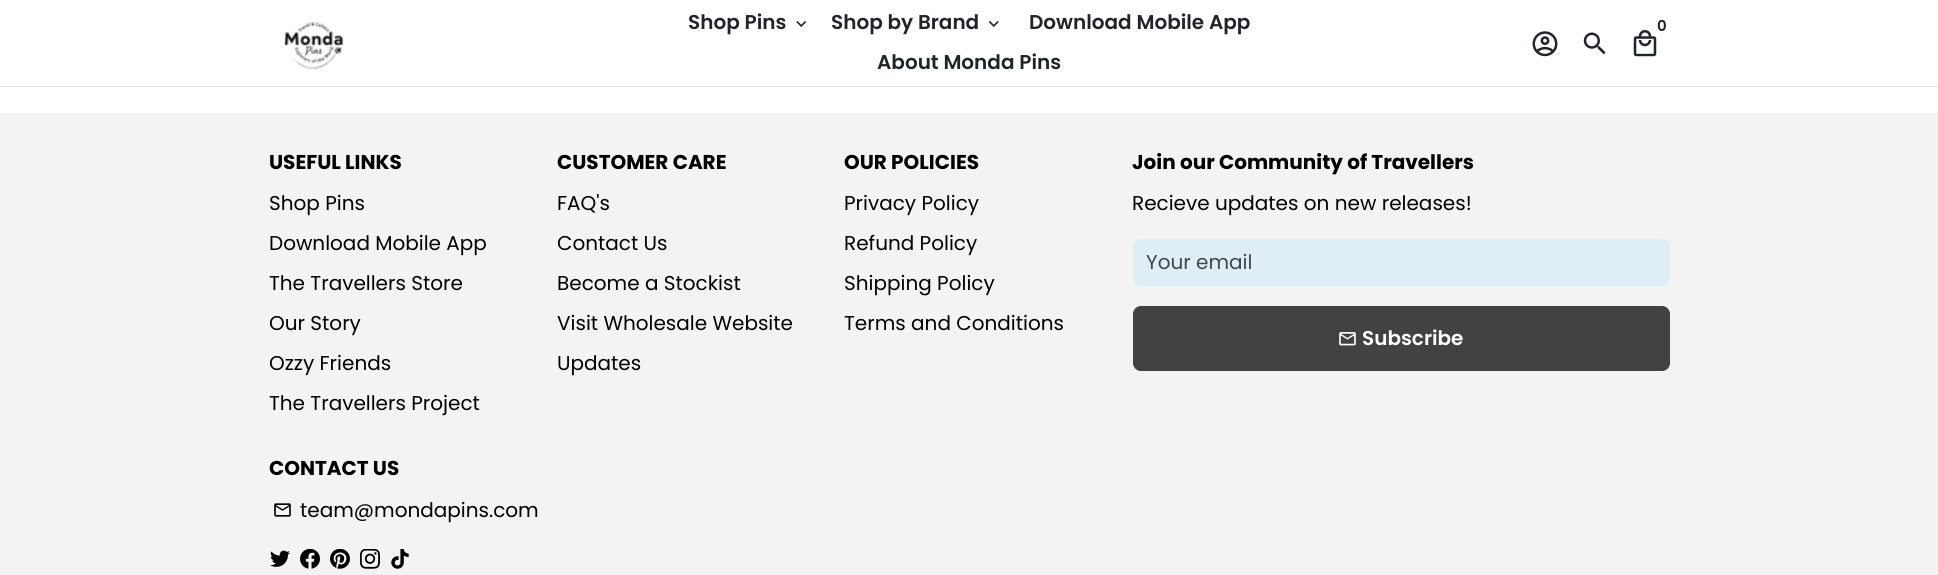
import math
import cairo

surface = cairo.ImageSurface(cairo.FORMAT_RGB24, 1938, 575)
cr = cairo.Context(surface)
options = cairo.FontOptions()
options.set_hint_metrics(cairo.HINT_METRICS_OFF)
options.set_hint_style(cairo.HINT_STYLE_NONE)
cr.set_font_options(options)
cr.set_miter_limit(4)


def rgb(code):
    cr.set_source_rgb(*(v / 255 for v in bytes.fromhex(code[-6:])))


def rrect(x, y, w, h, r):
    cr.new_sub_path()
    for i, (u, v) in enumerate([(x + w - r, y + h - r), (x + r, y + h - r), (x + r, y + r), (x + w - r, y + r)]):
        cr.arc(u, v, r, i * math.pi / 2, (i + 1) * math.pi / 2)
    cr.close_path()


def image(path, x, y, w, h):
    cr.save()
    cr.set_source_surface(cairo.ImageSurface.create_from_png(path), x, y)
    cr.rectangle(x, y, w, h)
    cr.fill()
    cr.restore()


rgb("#ffffff")
cr.paint()
rgb("#e5e5e5")
cr.rectangle(0, 86, 1938, 1)
cr.fill()
image("img/1.png", 283, 21, 62, 50)
image("img/2.png", 796, 21, 11, 6)
image("img/3.png", 988, 21, 11, 6)
image("img/4.png", 1633, 30, 24, 27)
image("img/5.png", 1532, 31, 26, 26)
image("img/6.png", 1583, 32, 23, 23)
rgb("#f3f3f3")
cr.rectangle(0, 113, 1938, 462)
cr.fill()
rgb("#dfedf7")
rrect(1133.5, 239.5, 536, 46, 7.5)
cr.fill_preserve()
cr.set_line_width(1)
cr.stroke()
rgb("#424242")
rrect(1133.5, 306.5, 536, 64, 7.5)
cr.fill_preserve()
cr.stroke()
image("img/7.png", 1339, 332, 17, 14)
image("img/8.png", 274, 503, 17, 14)
image("img/9.png", 270, 550, 20, 17)
image("img/10.png", 300, 549, 20, 20)
image("img/11.png", 330, 549, 20, 20)
image("img/12.png", 360, 549, 20, 20)
image("img/13.png", 391, 549, 18, 20)
cr.select_font_face("Poppins SemiBold")
cr.set_font_size(20)
rgb("#212529")
for x, y, s in [
    (688, 29, "Shop Pins"),
    (831, 29, "Shop by Brand"),
    (1029, 29, "Download Mobile App"),
    (877, 69, "About Monda Pins"),
]:
    cr.move_to(x, y)
    cr.show_text(s)
cr.set_font_size(15)
cr.move_to(1657, 31)
cr.show_text("0")
cr.select_font_face("Poppins", cairo.FONT_SLANT_NORMAL, cairo.FONT_WEIGHT_BOLD)
cr.set_font_size(20)
rgb("#000000")
cr.move_to(269, 169)
cr.show_text("USEFUL LINKS")
cr.select_font_face("Poppins")
for x, y, s in [
    (269, 210, "Shop Pins"),
    (269, 250, "Download Mobile App"),
    (269, 290, "The Travellers Store"),
    (269, 330, "Our Story"),
    (269, 370, "Ozzy Friends"),
    (269, 410, "The Travellers Project"),
]:
    cr.move_to(x, y)
    cr.show_text(s)
cr.select_font_face("Poppins", cairo.FONT_SLANT_NORMAL, cairo.FONT_WEIGHT_BOLD)
cr.move_to(557, 169)
cr.show_text("CUSTOMER CARE")
cr.select_font_face("Poppins")
for x, y, s in [
    (557, 210, "FAQ's"),
    (557, 250, "Contact Us"),
    (557, 290, "Become a Stockist"),
    (557, 330, "Visit Wholesale Website"),
    (557, 370, "Updates"),
]:
    cr.move_to(x, y)
    cr.show_text(s)
cr.select_font_face("Poppins", cairo.FONT_SLANT_NORMAL, cairo.FONT_WEIGHT_BOLD)
cr.move_to(844, 169)
cr.show_text("OUR POLICIES")
cr.select_font_face("Poppins")
for x, y, s in [
    (844, 210, "Privacy Policy"),
    (844, 250, "Refund Policy"),
    (844, 290, "Shipping Policy"),
    (844, 330, "Terms and Conditions"),
]:
    cr.move_to(x, y)
    cr.show_text(s)
cr.select_font_face("Poppins", cairo.FONT_SLANT_NORMAL, cairo.FONT_WEIGHT_BOLD)
cr.move_to(1132, 169)
cr.show_text("Join our Community of Travellers")
cr.select_font_face("Poppins")
cr.move_to(1132, 210)
cr.show_text("Recieve updates on new releases!")
rgb("#43474a")
cr.move_to(1146, 269)
cr.show_text("Your email")
cr.select_font_face("Poppins SemiBold")
rgb("#ffffff")
cr.move_to(1362, 345)
cr.show_text("Subscribe")
cr.select_font_face("Poppins", cairo.FONT_SLANT_NORMAL, cairo.FONT_WEIGHT_BOLD)
rgb("#000000")
cr.move_to(269, 475)
cr.show_text("CONTACT US")
cr.select_font_face("Poppins")
cr.move_to(300, 517)
cr.show_text("team@mondapins.com")
surface.write_to_png("page.png")
